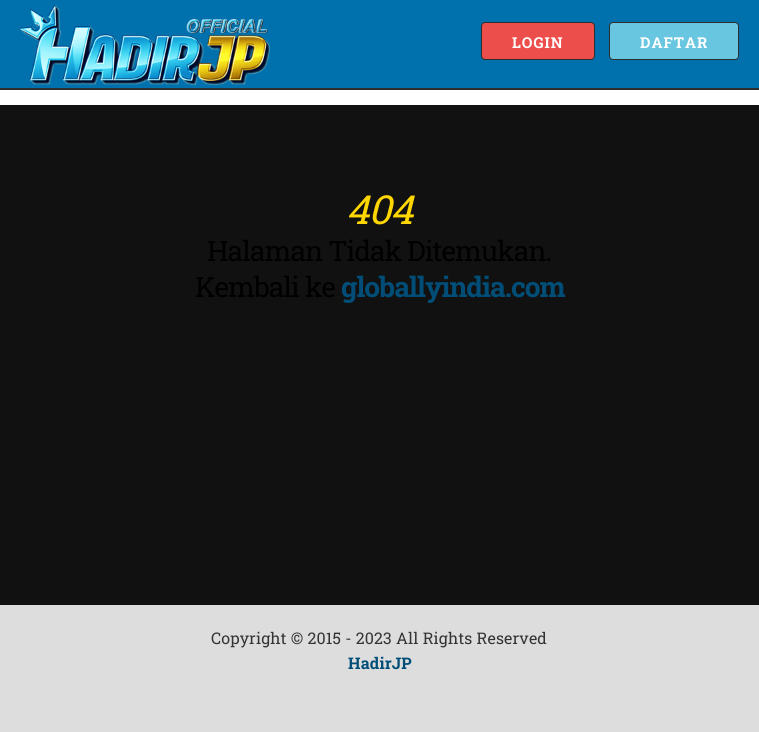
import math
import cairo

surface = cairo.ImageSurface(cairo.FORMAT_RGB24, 759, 732)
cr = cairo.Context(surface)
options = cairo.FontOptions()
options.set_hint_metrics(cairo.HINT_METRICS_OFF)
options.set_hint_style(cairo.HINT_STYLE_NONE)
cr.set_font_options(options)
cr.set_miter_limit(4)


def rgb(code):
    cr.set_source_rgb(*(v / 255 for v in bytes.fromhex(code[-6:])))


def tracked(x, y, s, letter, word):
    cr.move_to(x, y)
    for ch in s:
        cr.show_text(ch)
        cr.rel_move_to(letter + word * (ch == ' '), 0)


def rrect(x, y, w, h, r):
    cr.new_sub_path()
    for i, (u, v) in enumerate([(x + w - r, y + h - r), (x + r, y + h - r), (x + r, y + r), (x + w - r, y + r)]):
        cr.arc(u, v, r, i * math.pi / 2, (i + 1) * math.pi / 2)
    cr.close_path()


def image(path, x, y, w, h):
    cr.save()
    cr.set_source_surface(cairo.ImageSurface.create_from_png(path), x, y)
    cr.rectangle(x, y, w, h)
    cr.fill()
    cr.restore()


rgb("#ffffff")
cr.paint()
rgb("#0071ad")
cr.rectangle(0, 0, 759, 88)
cr.fill()
rgb("#2d2d2b")
cr.rectangle(0, 88, 759, 2)
cr.fill()
image("img/1.png", 20, 5, 250, 80)
rgb("#ec4f4b")
rrect(481.5, 22.5, 113, 37, 3.5)
cr.fill_preserve()
rgb("#2d2d2b")
cr.set_line_width(1)
cr.stroke()
rgb("#69c6e1")
rrect(609.5, 22.5, 129, 37, 3.5)
cr.fill_preserve()
rgb("#2d2d2b")
cr.stroke()
rgb("#111111")
cr.rectangle(0, 105, 759, 500)
cr.fill()
rgb("#dddddd")
cr.rectangle(0, 605, 759, 127)
cr.fill()
cr.select_font_face("Roboto Slab", cairo.FONT_SLANT_NORMAL, cairo.FONT_WEIGHT_BOLD)
cr.set_font_size(15)
rgb("#ffffff")
tracked(512, 48, "LOGIN", 1, 0)
tracked(640, 48, "DAFTAR", 1, 0)
cr.select_font_face("Roboto Slab", cairo.FONT_SLANT_ITALIC)
cr.set_font_size(40)
rgb("#ffd700")
tracked(346, 224, "404", -1, 0)
cr.select_font_face("Roboto Slab")
cr.set_font_size(28)
rgb("#000000")
tracked(207, 261, "Halaman Tidak Ditemukan.", -1, 0)
tracked(195, 297, "Kembali ke", -1, 0)
cr.select_font_face("Roboto Slab", cairo.FONT_SLANT_NORMAL, cairo.FONT_WEIGHT_BOLD)
rgb("#004e77")
tracked(341, 297, "globallyindia.com", -1, 0)
cr.select_font_face("Roboto Slab")
cr.set_font_size(16)
rgb("#333333")
tracked(211, 644, "Copyright © 2015 - 2023 All Rights Reserved", 0.15, 0)
cr.select_font_face("Roboto Slab", cairo.FONT_SLANT_NORMAL, cairo.FONT_WEIGHT_BOLD)
rgb("#004e77")
tracked(348, 669, "HadirJP", 0.15, 0)
surface.write_to_png("page.png")
